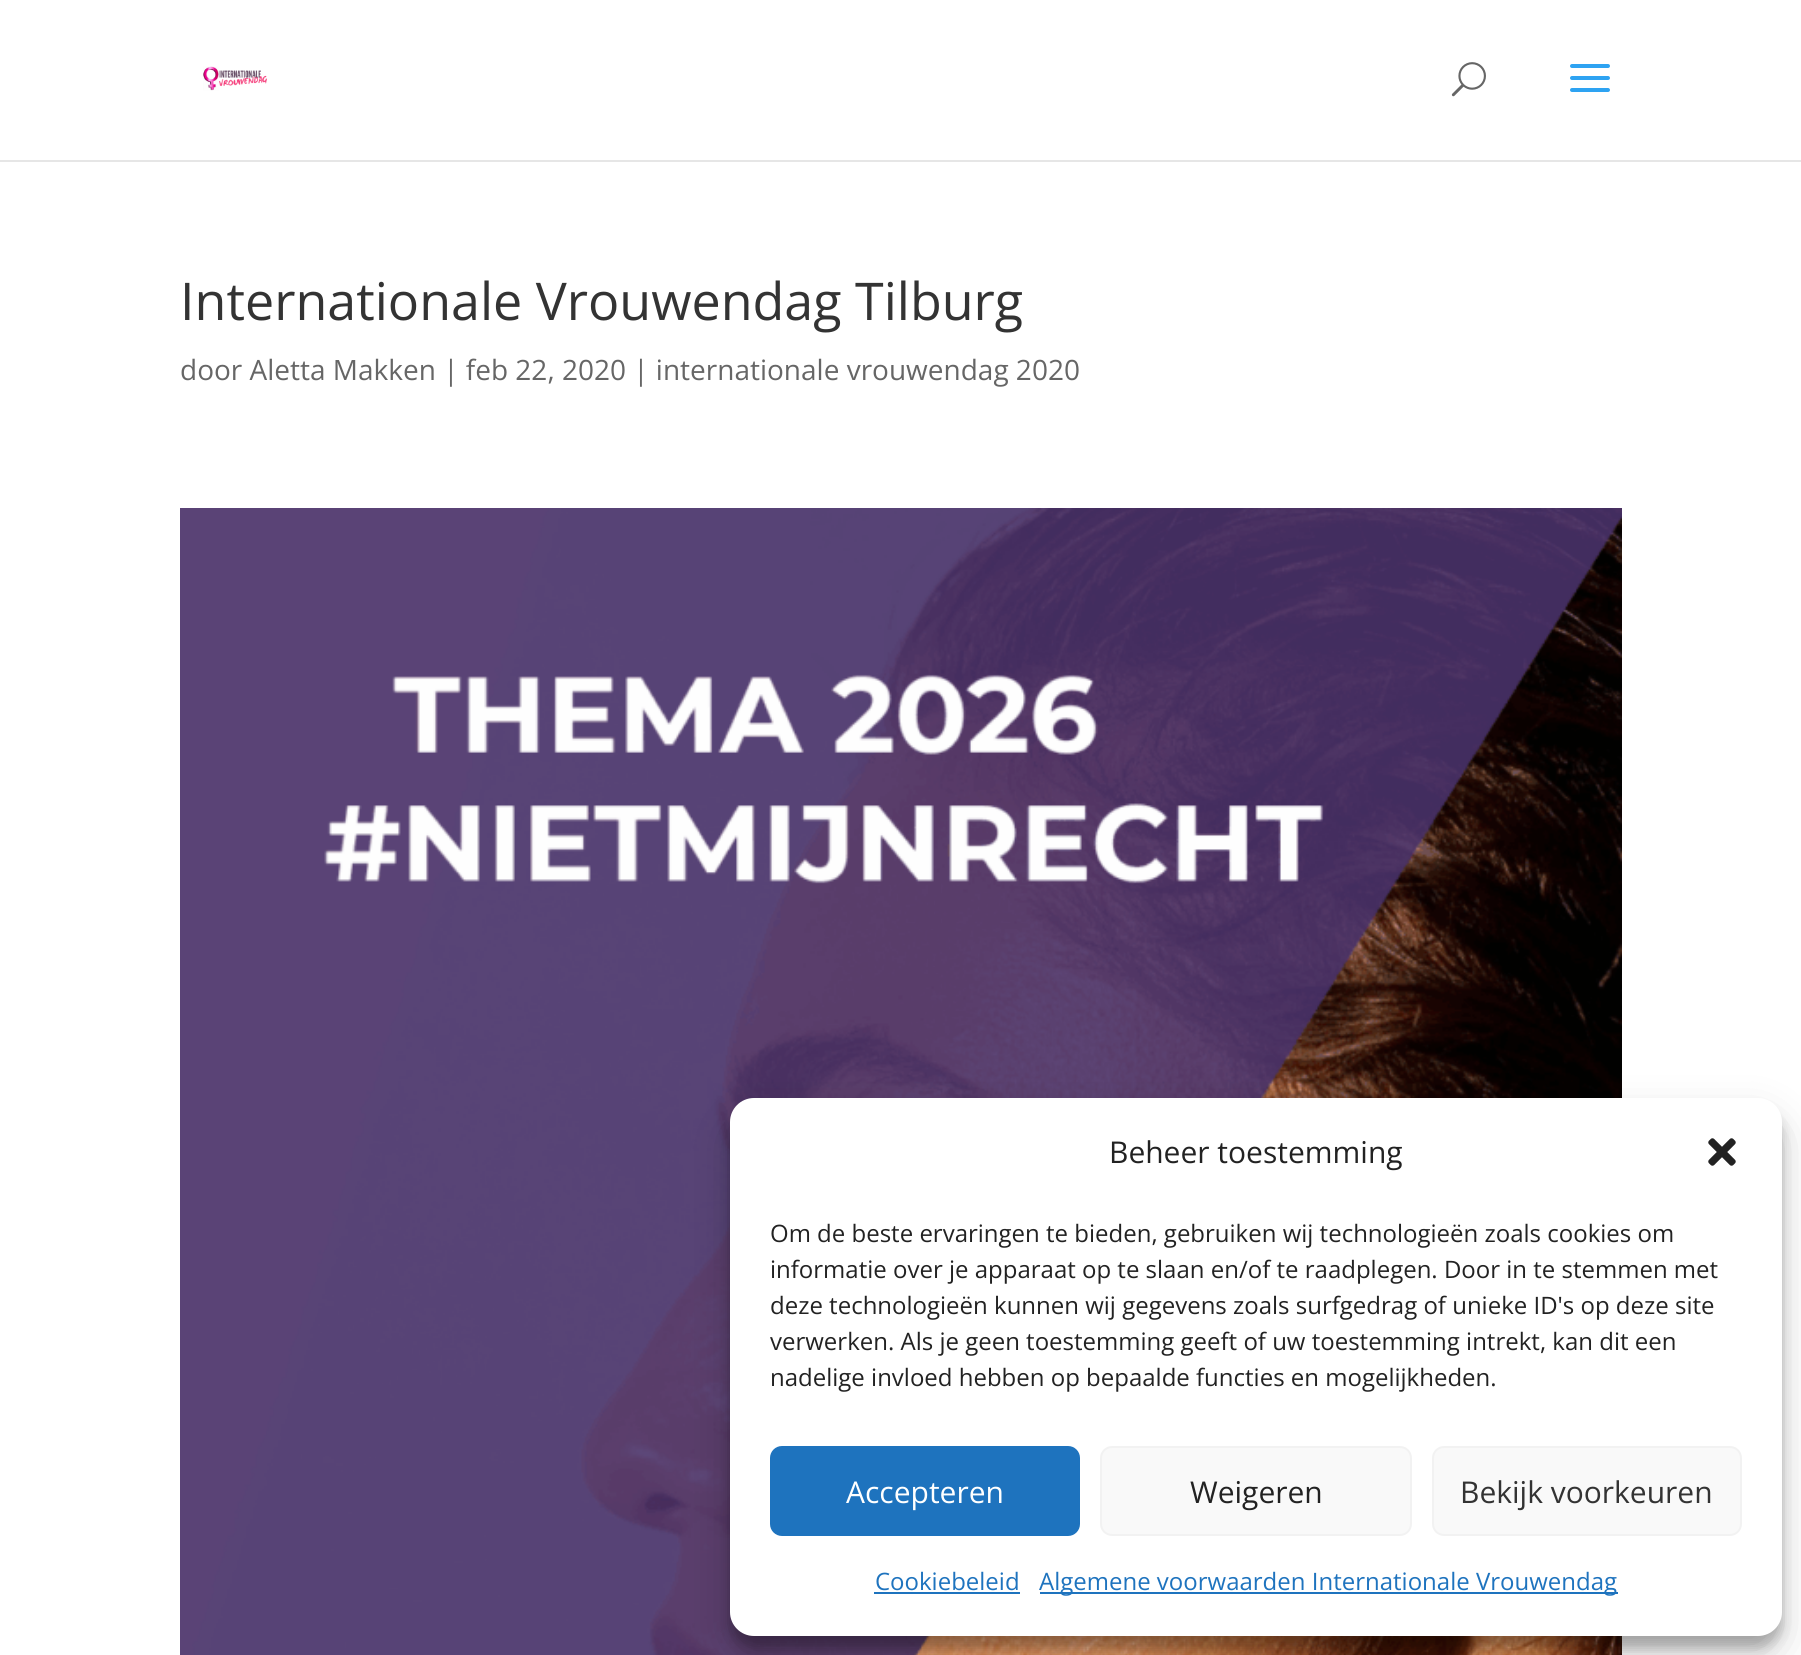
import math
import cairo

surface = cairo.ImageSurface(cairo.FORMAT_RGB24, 1801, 1655)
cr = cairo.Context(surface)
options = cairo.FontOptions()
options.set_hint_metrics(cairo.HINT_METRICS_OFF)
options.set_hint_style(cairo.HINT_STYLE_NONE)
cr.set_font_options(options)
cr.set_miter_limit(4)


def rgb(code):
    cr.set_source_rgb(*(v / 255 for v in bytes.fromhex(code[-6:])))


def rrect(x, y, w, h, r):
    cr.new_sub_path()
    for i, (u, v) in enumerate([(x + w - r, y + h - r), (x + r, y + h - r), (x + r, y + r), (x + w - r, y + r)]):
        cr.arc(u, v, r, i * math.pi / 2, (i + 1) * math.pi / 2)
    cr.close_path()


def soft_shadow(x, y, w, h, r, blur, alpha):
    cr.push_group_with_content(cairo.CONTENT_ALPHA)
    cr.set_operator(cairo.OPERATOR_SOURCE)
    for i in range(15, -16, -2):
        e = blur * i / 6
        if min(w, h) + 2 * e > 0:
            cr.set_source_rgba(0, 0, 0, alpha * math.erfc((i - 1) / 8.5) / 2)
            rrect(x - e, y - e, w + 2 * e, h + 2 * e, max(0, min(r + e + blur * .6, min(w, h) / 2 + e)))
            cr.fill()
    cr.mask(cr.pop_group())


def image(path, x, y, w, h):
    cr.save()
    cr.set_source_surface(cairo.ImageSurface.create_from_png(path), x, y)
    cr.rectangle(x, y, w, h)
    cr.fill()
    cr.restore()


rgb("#ffffff")
cr.paint()
rgb("#e6e6e6")
cr.rectangle(0, 160, 1801, 2)
cr.fill()
image("img/1.png", 203, 66, 64, 25)
image("img/2.png", 1451, 62, 35, 35)
image("img/3.png", 1570, 64, 40, 28)
image("img/4.png", 180, 508, 1442, 1147)
rgb("#000000")
soft_shadow(730, 1110, 1052, 538, 24, 6, 0.23)
soft_shadow(730, 1118, 1052, 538, 24, 20, 0.19)
rgb("#ffffff")
rrect(730, 1098, 1052, 538, 24)
cr.fill()
image("img/5.png", 1708, 1138, 28, 28)
rgb("#1e73be")
rrect(771, 1447, 308, 88, 11)
cr.fill_preserve()
cr.stroke()
rgb("#f9f9f9")
rrect(1101, 1447, 310, 88, 11)
cr.fill_preserve()
rgb("#f2f2f2")
cr.stroke()
rgb("#f9f9f9")
rrect(1433, 1447, 308, 88, 11)
cr.fill_preserve()
rgb("#f2f2f2")
cr.stroke()
rgb("#1e73be")
cr.rectangle(874, 1592, 146, 2)
cr.fill()
cr.rectangle(1040, 1592, 578, 2)
cr.fill()
cr.select_font_face("Open Sans")
cr.set_font_size(52)
rgb("#333333")
cr.move_to(180, 320)
cr.show_text("Internationale Vrouwendag Tilburg")
cr.set_font_size(28)
rgb("#666666")
cr.move_to(180, 380)
cr.show_text("door Aletta Makken | feb 22, 2020 | internationale vrouwendag 2020")
cr.set_font_size(30)
rgb("#222222")
cr.move_to(1109, 1163)
cr.show_text("Beheer toestemming")
cr.set_font_size(24)
for x, y, s in [
    (770, 1242, "Om de beste ervaringen te bieden, gebruiken wij technologieën zoals cookies om"),
    (770, 1278, "informatie over je apparaat op te slaan en/of te raadplegen. Door in te stemmen met"),
    (770, 1314, "deze technologieën kunnen wij gegevens zoals surfgedrag of unieke ID's op deze site"),
    (770, 1350, "verwerken. Als je geen toestemming geeft of uw toestemming intrekt, kan dit een"),
    (770, 1386, "nadelige invloed hebben op bepaalde functies en mogelijkheden."),
]:
    cr.move_to(x, y)
    cr.show_text(s)
cr.set_font_size(30)
rgb("#ffffff")
cr.move_to(846, 1503)
cr.show_text("Accepteren")
rgb("#222222")
cr.move_to(1190, 1503)
cr.show_text("Weigeren")
rgb("#333333")
cr.move_to(1460, 1503)
cr.show_text("Bekijk voorkeuren")
cr.set_font_size(24)
rgb("#1e73be")
cr.move_to(875, 1590)
cr.show_text("Cookiebeleid")
cr.move_to(1039, 1590)
cr.show_text("Algemene voorwaarden Internationale Vrouwendag")
surface.write_to_png("page.png")
